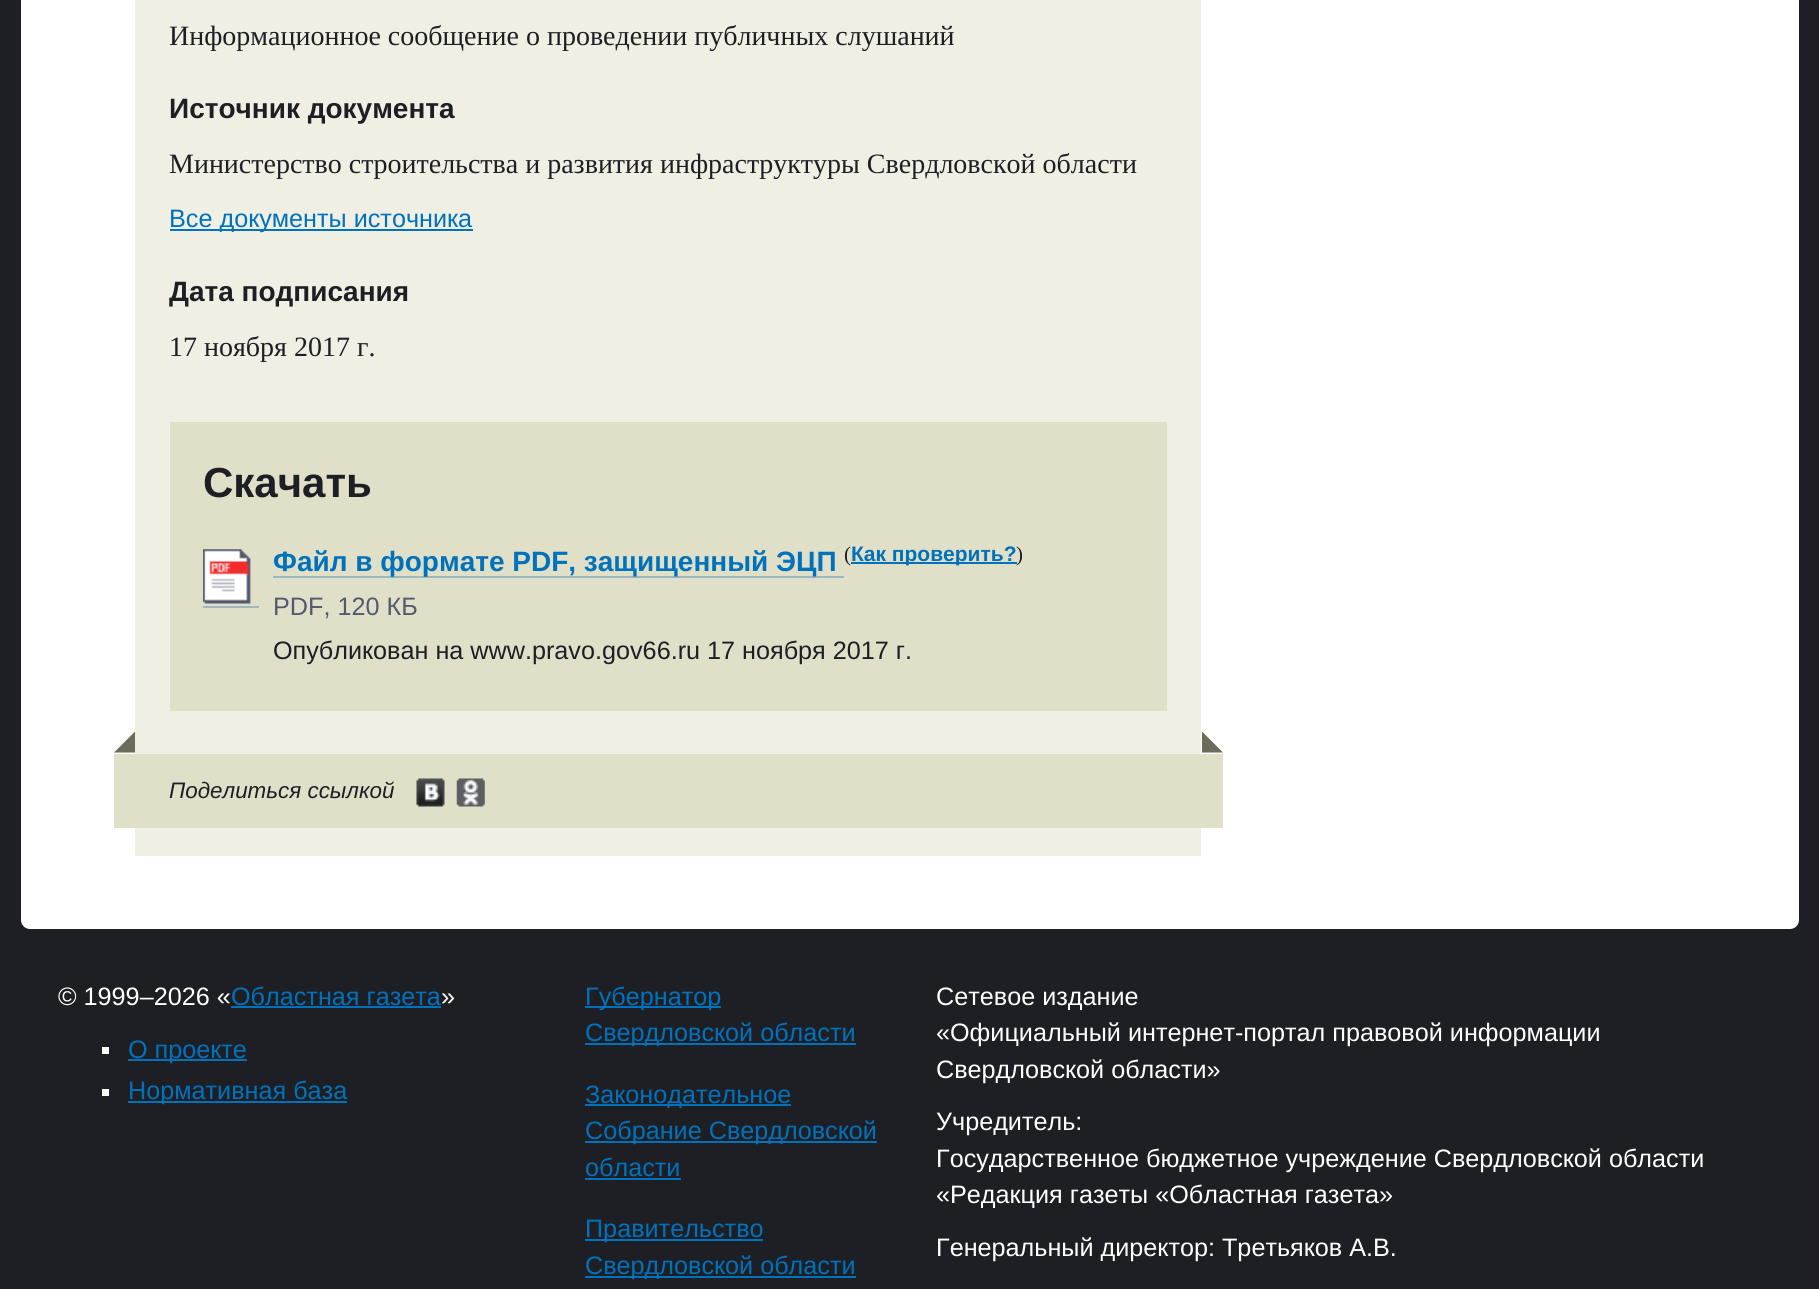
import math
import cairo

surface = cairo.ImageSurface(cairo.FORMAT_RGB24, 1819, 1289)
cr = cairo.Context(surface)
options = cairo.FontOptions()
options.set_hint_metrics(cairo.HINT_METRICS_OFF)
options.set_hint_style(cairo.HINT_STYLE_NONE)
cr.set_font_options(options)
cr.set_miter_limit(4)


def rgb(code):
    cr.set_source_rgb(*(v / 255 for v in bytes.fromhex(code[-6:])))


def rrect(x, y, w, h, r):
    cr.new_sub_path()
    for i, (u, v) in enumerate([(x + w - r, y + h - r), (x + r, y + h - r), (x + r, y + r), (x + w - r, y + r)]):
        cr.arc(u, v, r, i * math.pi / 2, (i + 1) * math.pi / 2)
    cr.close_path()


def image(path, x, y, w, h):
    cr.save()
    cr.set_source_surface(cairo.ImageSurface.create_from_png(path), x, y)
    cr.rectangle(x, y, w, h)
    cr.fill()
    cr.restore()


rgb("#1e1f25")
cr.paint()
rgb("#ffffff")
rrect(21, -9, 1778, 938, 9)
cr.fill()
for x, y, w, h, color in [
    (135, 0, 1066, 856, "#efefe4"),
    (170, 229, 303, 2, "#0072bc"),
    (170, 422, 997, 289, "#e0e0c9"),
    (203, 606, 56, 2, "#9db8c1"),
    (273, 576, 571, 2, "#9db8c1"),
]:
    rgb(color)
    cr.rectangle(x, y, w, h)
    cr.fill()
image("img/1.png", 203, 549, 48, 55)
rgb("#0072bc")
cr.rectangle(851, 562, 166, 2)
cr.fill()
rgb("#e0e0c9")
cr.rectangle(114, 754, 1109, 74)
cr.fill()
rgb("#6c6c5a")
cr.new_path()
cr.move_to(135, 752.5)
cr.line_to(114, 752.5)
cr.line_to(135, 731.5)
cr.close_path()
cr.fill()
cr.new_path()
cr.move_to(1223, 752.5)
cr.line_to(1202, 752.5)
cr.line_to(1202, 731.5)
cr.close_path()
cr.fill()
image("img/2.png", 416, 778, 29, 29)
image("img/3.png", 456, 778, 29, 29)
for x, y, w, h, color in [
    (231, 1006, 210, 2, "#0072bc"),
    (102, 1047, 7, 7, "#ffffff"),
    (128, 1059, 119, 2, "#0072bc"),
    (102, 1089, 7, 7, "#ffffff"),
    (128, 1101, 219, 2, "#0072bc"),
    (585, 1006, 136, 2, "#0072bc"),
    (585, 1043, 271, 2, "#0072bc"),
    (585, 1104, 206, 2, "#0072bc"),
    (585, 1141, 292, 2, "#0072bc"),
    (585, 1178, 96, 2, "#0072bc"),
    (585, 1239, 178, 2, "#0072bc"),
    (585, 1276, 271, 2, "#0072bc"),
]:
    rgb(color)
    cr.rectangle(x, y, w, h)
    cr.fill()
cr.select_font_face("Liberation Serif")
cr.set_font_size(28)
rgb("#1e1f25")
cr.move_to(169, 45)
cr.show_text("Информационное сообщение о проведении публичных слушаний")
cr.select_font_face("Liberation Sans", cairo.FONT_SLANT_NORMAL, cairo.FONT_WEIGHT_BOLD)
cr.move_to(169, 118)
cr.show_text("Источник документа")
cr.select_font_face("Liberation Serif")
cr.move_to(169, 173)
cr.show_text("Министерство строительства и развития инфраструктуры Свердловской области")
cr.select_font_face("Liberation Sans")
cr.set_font_size(25.2)
rgb("#0072bc")
cr.move_to(169, 227)
cr.show_text("Все документы источника")
cr.select_font_face("Liberation Sans", cairo.FONT_SLANT_NORMAL, cairo.FONT_WEIGHT_BOLD)
cr.set_font_size(28)
rgb("#1e1f25")
cr.move_to(169, 301)
cr.show_text("Дата подписания")
cr.select_font_face("Liberation Serif")
cr.move_to(169, 356)
cr.show_text("17 ноября 2017 г.")
cr.select_font_face("Liberation Sans", cairo.FONT_SLANT_NORMAL, cairo.FONT_WEIGHT_BOLD)
cr.set_font_size(42)
cr.move_to(203, 497)
cr.show_text("Скачать")
cr.set_font_size(28)
rgb("#0072bc")
cr.move_to(273, 571)
cr.show_text("Файл в формате PDF, защищенный ЭЦП")
cr.select_font_face("Liberation Serif")
cr.set_font_size(21)
rgb("#1e1f25")
cr.move_to(844, 561)
cr.show_text("(")
cr.select_font_face("Liberation Sans", cairo.FONT_SLANT_NORMAL, cairo.FONT_WEIGHT_BOLD)
rgb("#0072bc")
cr.move_to(851, 561)
cr.show_text("Как проверить?")
cr.select_font_face("Liberation Serif")
rgb("#1e1f25")
cr.move_to(1016, 561)
cr.show_text(")")
cr.select_font_face("Liberation Sans")
cr.set_font_size(25.2)
rgb("#54596f")
cr.move_to(273, 615)
cr.show_text("PDF, 120 КБ")
rgb("#1e1f25")
cr.move_to(273, 659)
cr.show_text("Опубликован на www.pravo.gov66.ru 17 ноября 2017 г.")
cr.select_font_face("Liberation Sans", cairo.FONT_SLANT_ITALIC)
cr.set_font_size(22.4)
cr.move_to(169, 798)
cr.show_text("Поделиться ссылкой")
cr.select_font_face("Liberation Sans")
cr.set_font_size(25.2)
rgb("#ffffff")
cr.move_to(58, 1005)
cr.show_text("© 1999–2026 «")
rgb("#0072bc")
cr.move_to(231, 1005)
cr.show_text("Областная газета")
rgb("#ffffff")
cr.move_to(441, 1005)
cr.show_text("»")
rgb("#0072bc")
for x, y, s in [
    (128, 1058, "О проекте"),
    (128, 1099, "Нормативная база"),
    (585, 1005, "Губернатор"),
    (585, 1041, "Свердловской области"),
    (585, 1103, "Законодательное"),
    (585, 1139, "Собрание Свердловской"),
    (585, 1176, "области"),
    (585, 1237, "Правительство"),
    (585, 1274, "Свердловской области"),
]:
    cr.move_to(x, y)
    cr.show_text(s)
rgb("#ffffff")
for x, y, s in [
    (936, 1005, "Сетевое издание"),
    (936, 1041, "«Официальный интернет-портал правовой информации"),
    (936, 1078, "Свердловской области»"),
    (936, 1130, "Учредитель:"),
    (936, 1167, "Государственное бюджетное учреждение Свердловской области"),
    (936, 1203, "«Редакция газеты «Областная газета»"),
    (936, 1256, "Генеральный директор: Третьяков А.В."),
]:
    cr.move_to(x, y)
    cr.show_text(s)
surface.write_to_png("page.png")
